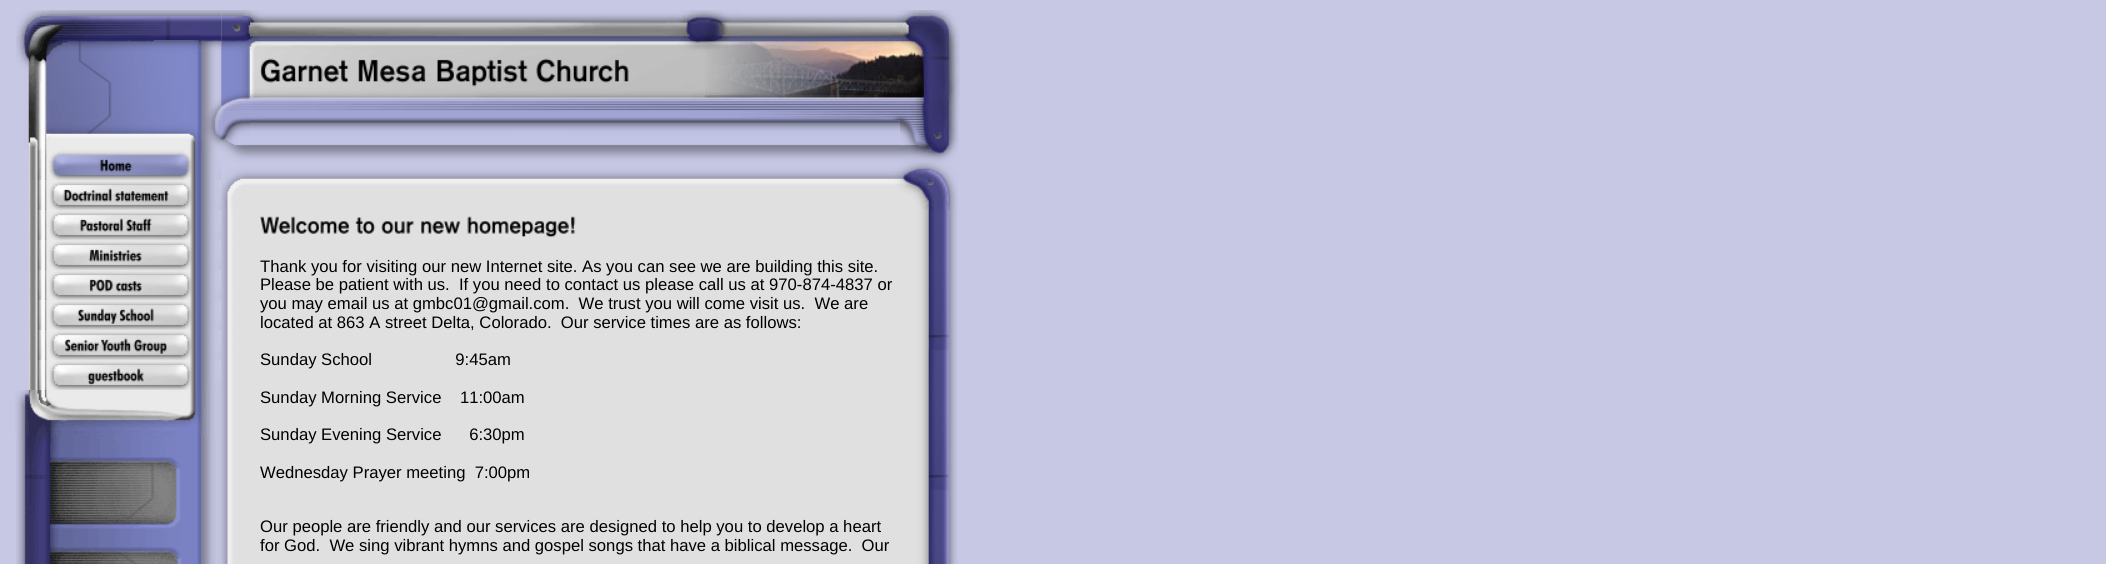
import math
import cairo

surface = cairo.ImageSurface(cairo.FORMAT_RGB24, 2106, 564)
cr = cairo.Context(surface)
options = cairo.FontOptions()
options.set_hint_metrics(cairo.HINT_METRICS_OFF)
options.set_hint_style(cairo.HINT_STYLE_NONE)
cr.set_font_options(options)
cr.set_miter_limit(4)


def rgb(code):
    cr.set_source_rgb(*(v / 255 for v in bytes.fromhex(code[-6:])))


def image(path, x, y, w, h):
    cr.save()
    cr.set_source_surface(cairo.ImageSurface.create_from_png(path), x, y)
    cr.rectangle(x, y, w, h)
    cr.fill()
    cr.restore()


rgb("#c7c8e4")
cr.paint()
image("img/1.png", 16, 10, 34, 140)
image("img/2.png", 50, 10, 150, 30)
image("img/3.png", 200, 10, 22, 140)
image("img/4.png", 50, 40, 150, 90)
image("img/5.png", 50, 130, 150, 20)
image("img/6.png", 221, 10, 29, 110)
image("img/7.png", 250, 10, 440, 40)
image("img/8.png", 690, 10, 270, 110)
image("img/9.png", 250, 50, 440, 40)
image("img/10.png", 250, 90, 440, 30)
image("img/11.png", 221, 120, 29, 30)
image("img/12.png", 250, 120, 650, 30)
image("img/13.png", 900, 120, 59, 30)
image("img/14.png", 28, 150, 1, 30)
image("img/15.png", 29, 150, 192, 30)
image("img/14.png", 28, 180, 1, 30)
image("img/16.png", 29, 180, 192, 30)
image("img/14.png", 28, 210, 1, 30)
image("img/17.png", 29, 210, 192, 30)
image("img/14.png", 28, 240, 1, 30)
image("img/18.png", 29, 240, 192, 30)
image("img/14.png", 28, 270, 1, 30)
image("img/19.png", 29, 270, 192, 30)
image("img/14.png", 28, 300, 1, 30)
image("img/20.png", 29, 300, 192, 30)
image("img/14.png", 28, 330, 1, 30)
image("img/21.png", 29, 330, 192, 30)
image("img/14.png", 28, 360, 1, 30)
image("img/22.png", 29, 360, 192, 30)
image("img/23.png", 15, 390, 206, 45)
image("img/24.png", 16, 435, 205, 129)
image("img/25.png", 221, 150, 737, 60)
image("img/26.png", 221, 210, 39, 354)
rgb("#e0e0e0")
cr.rectangle(260, 210, 640, 354)
cr.fill()
image("img/27.png", 260, 216, 316, 22)
image("img/28.png", 900, 210, 58, 354)
image("img/29.png", 928, 210, 1, 140)
cr.select_font_face("Liberation Sans")
cr.set_font_size(16.65)
rgb("#000000")
for x, y, s in [
    (260, 272, "Thank you for visiting our new Internet site. As you can see we are building this site."),
    (260, 290, "Please be patient with us.  If you need to contact us please call us at 970-874-4837 or"),
    (260, 309, "you may email us at gmbc01@gmail.com.  We trust you will come visit us.  We are"),
    (260, 328, "located at 863 A street Delta, Colorado.  Our service times are as follows:"),
    (260, 365, "Sunday School                  9:45am"),
    (260, 403, "Sunday Morning Service    11:00am"),
    (260, 440, "Sunday Evening Service      6:30pm"),
    (260, 478, "Wednesday Prayer meeting  7:00pm"),
    (260, 532, "Our people are friendly and our services are designed to help you to develop a heart"),
    (260, 551, "for God.  We sing vibrant hymns and gospel songs that have a biblical message.  Our"),
]:
    cr.move_to(x, y)
    cr.show_text(s)
surface.write_to_png("page.png")
